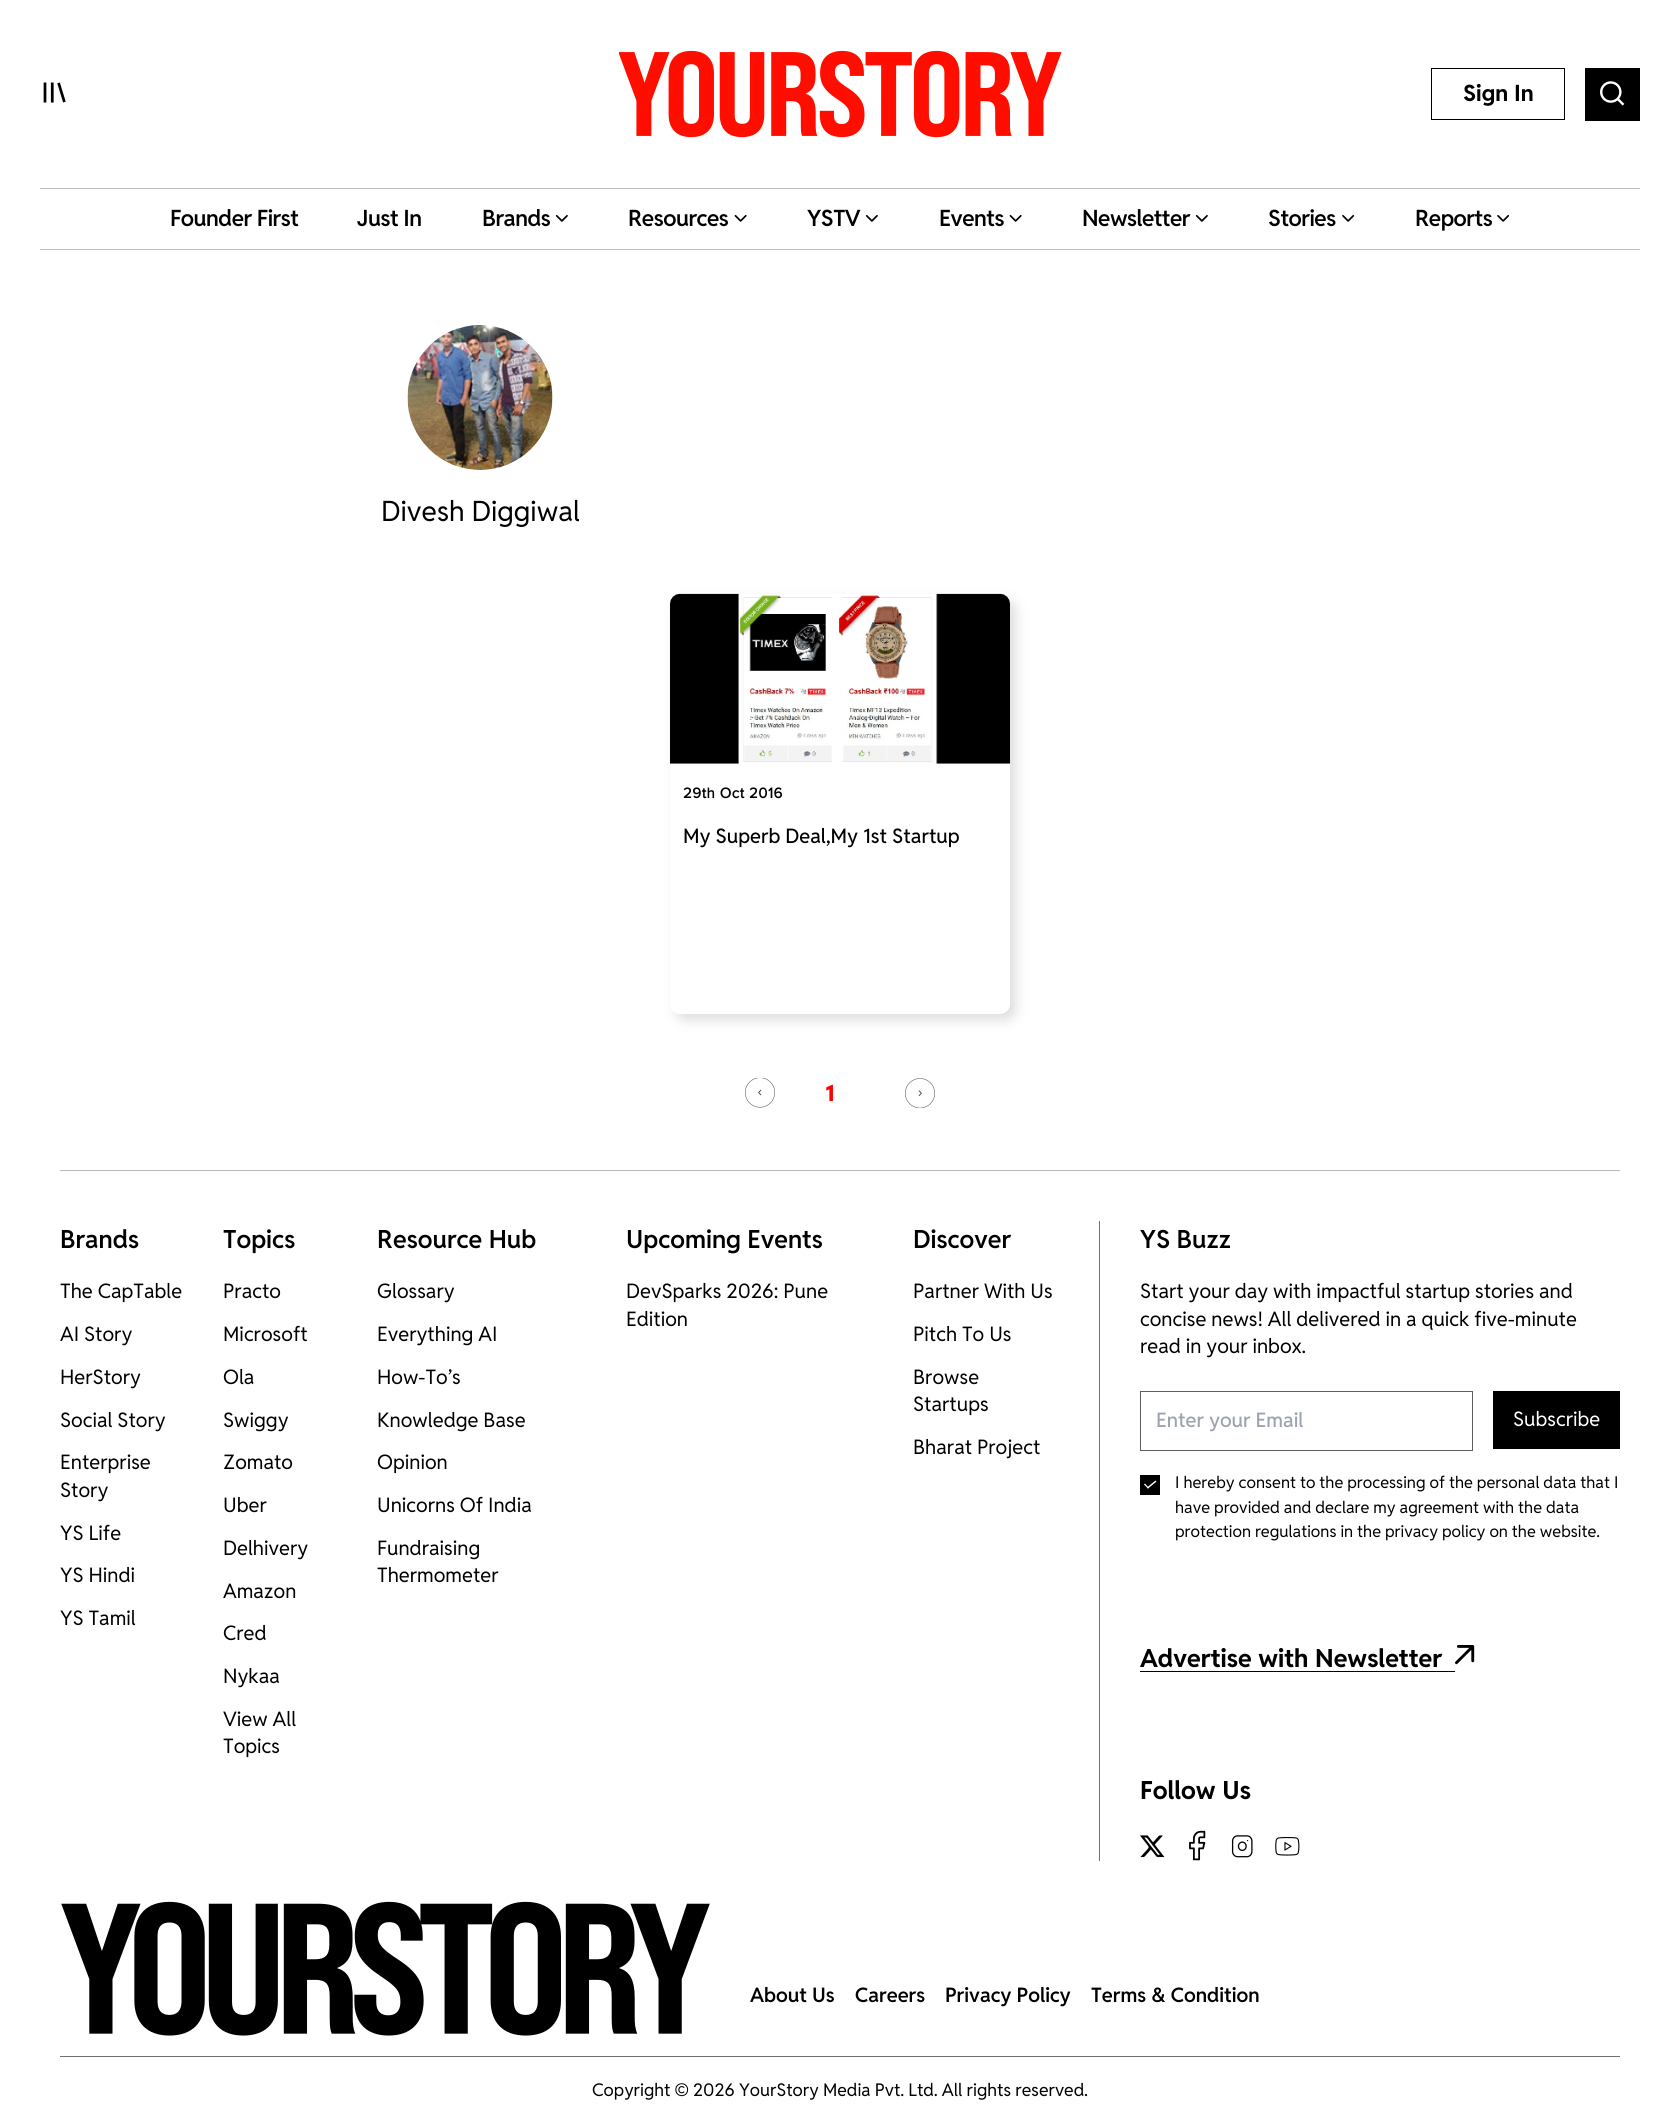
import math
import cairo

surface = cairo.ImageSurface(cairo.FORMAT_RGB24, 1679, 2105)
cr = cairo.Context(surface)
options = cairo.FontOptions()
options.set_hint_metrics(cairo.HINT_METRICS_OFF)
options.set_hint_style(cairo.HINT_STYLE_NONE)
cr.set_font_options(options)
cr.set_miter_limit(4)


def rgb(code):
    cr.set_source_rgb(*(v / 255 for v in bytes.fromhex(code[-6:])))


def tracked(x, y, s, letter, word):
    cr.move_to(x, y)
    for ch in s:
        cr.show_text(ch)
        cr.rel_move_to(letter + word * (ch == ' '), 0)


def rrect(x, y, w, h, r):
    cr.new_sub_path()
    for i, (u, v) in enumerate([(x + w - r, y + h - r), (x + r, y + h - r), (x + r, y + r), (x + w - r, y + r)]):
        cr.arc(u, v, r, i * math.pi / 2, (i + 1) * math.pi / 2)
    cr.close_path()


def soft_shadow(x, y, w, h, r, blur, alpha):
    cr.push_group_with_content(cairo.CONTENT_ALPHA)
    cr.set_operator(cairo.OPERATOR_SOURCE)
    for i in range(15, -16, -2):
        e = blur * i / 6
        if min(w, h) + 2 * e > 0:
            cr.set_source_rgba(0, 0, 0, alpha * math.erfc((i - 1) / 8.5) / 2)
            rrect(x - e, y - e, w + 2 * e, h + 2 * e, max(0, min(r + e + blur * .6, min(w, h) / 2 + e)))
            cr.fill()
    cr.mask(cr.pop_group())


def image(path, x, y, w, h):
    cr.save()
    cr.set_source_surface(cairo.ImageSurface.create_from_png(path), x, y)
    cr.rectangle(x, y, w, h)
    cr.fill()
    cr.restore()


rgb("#ffffff")
cr.paint()
image("img/1.png", 43, 82, 23, 21)
image("img/2.png", 619, 50, 443, 88)
cr.rectangle(1431.5, 68.5, 133, 51)
rgb("#000000")
cr.set_line_width(1)
cr.stroke()
image("img/3.png", 1585, 68, 55, 53)
rgb("#bebebe")
cr.rectangle(40, 188, 1600, 1)
cr.fill()
cr.rectangle(40, 249, 1600, 1)
cr.fill()
image("img/4.png", 555, 215, 13, 7)
image("img/5.png", 734, 215, 13, 7)
image("img/4.png", 865, 215, 13, 7)
image("img/5.png", 1009, 215, 13, 7)
image("img/4.png", 1195, 215, 13, 7)
image("img/6.png", 1342, 215, 13, 7)
image("img/6.png", 1497, 215, 13, 7)
image("img/7.png", 407, 325, 146, 145)
cr.save()
cr.set_fill_rule(cairo.FILL_RULE_EVEN_ODD)
cr.new_path()
cr.move_to(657, 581)
cr.line_to(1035, 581)
cr.line_to(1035, 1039)
cr.line_to(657, 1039)
cr.close_path()
cr.move_to(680, 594)
cr.line_to(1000, 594)
cr.curve_to(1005.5, 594, 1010, 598.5, 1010, 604)
cr.line_to(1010, 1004)
cr.curve_to(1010, 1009.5, 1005.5, 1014, 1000, 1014)
cr.line_to(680, 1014)
cr.curve_to(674.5, 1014, 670, 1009.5, 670, 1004)
cr.line_to(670, 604)
cr.curve_to(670, 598.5, 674.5, 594, 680, 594)
cr.close_path()
cr.clip()
rgb("#c3c3c3")
soft_shadow(676, 600, 340, 420, 10, 6, 0.55)
cr.restore()
image("img/8.png", 670, 593, 340, 171)
image("img/9.png", 745, 1078, 30, 30)
image("img/10.png", 905, 1078, 30, 30)
rgb("#b9b9b9")
cr.rectangle(60, 1170, 1560, 1)
cr.fill()
rgb("#707070")
cr.rectangle(1099, 1221, 1, 640)
cr.fill()
cr.rectangle(1140.5, 1391.5, 332, 59)
rgb("#5f5f5f")
cr.stroke()
rgb("#000000")
cr.rectangle(1493, 1391, 127, 58)
cr.fill()
cr.rectangle(1140, 1475, 20, 20)
cr.fill()
rgb("#ffffff")
cr.new_path()
cr.move_to(1155.5, 1480.5)
cr.line_to(1156.5, 1481.5)
cr.line_to(1148, 1488.5)
cr.line_to(1147, 1487.5)
cr.close_path()
cr.fill()
cr.new_path()
cr.move_to(1145, 1483.5)
cr.line_to(1149, 1488)
cr.line_to(1148, 1488.5)
cr.line_to(1144, 1484.5)
cr.close_path()
cr.fill()
rgb("#000000")
cr.rectangle(1140, 1671, 315, 1)
cr.fill()
image("img/11.png", 1455, 1645, 20, 20)
image("img/12.png", 1140, 1835, 25, 23)
image("img/13.png", 1189, 1830, 17, 31)
image("img/14.png", 1231, 1835, 22, 23)
image("img/15.png", 1275, 1837, 25, 19)
image("img/16.png", 61, 1901, 649, 135)
rgb("#727272")
cr.rectangle(60, 2056, 1560, 1)
cr.fill()
cr.select_font_face("Reddit Sans", cairo.FONT_SLANT_NORMAL, cairo.FONT_WEIGHT_BOLD)
cr.set_font_size(22.5)
rgb("#000000")
cr.move_to(1463, 101)
cr.show_text("Sign In")
cr.select_font_face("Reddit Sans SemiBold")
for x, y, s in [
    (170, 226, "Founder First"),
    (357, 226, "Just In"),
    (482, 226, "Brands"),
    (628, 226, "Resources"),
    (807, 226, "YSTV"),
    (939, 226, "Events"),
    (1082, 226, "Newsletter"),
    (1268, 226, "Stories"),
    (1415, 226, "Reports"),
]:
    tracked(x, y, s, -0.5, 0)
cr.select_font_face("Reddit Sans")
cr.set_font_size(28)
cr.move_to(381, 521)
cr.show_text("Divesh Diggiwal")
cr.select_font_face("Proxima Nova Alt", cairo.FONT_SLANT_NORMAL, cairo.FONT_WEIGHT_BOLD)
cr.set_font_size(15)
tracked(683, 798, "29th Oct 2016", 0.5, 0)
cr.select_font_face("Reddit Sans Medium")
cr.set_font_size(20)
cr.move_to(683, 843)
cr.show_text("My Superb Deal,My 1st Startup")
cr.select_font_face("Reddit Sans ExtraBold")
cr.set_font_size(22.5)
rgb("#ff0000")
cr.move_to(825, 1101)
cr.show_text("1")
cr.select_font_face("Reddit Sans SemiBold")
cr.set_font_size(25)
rgb("#000000")
cr.move_to(60, 1248)
cr.show_text("Brands")
cr.select_font_face("Reddit Sans")
cr.set_font_size(20)
for x, y, s in [
    (60, 1298, "The CapTable"),
    (60, 1341, "AI Story"),
    (60, 1384, "HerStory"),
    (60, 1427, "Social Story"),
    (60, 1469, "Enterprise"),
    (60, 1497, "Story"),
    (60, 1540, "YS Life"),
    (60, 1582, "YS Hindi"),
    (60, 1625, "YS Tamil"),
]:
    cr.move_to(x, y)
    cr.show_text(s)
cr.select_font_face("Reddit Sans SemiBold")
cr.set_font_size(25)
cr.move_to(223, 1248)
cr.show_text("Topics")
cr.select_font_face("Reddit Sans")
cr.set_font_size(20)
for x, y, s in [
    (223, 1298, "Practo"),
    (223, 1341, "Microsoft"),
    (223, 1384, "Ola"),
    (223, 1427, "Swiggy"),
    (223, 1469, "Zomato"),
    (223, 1512, "Uber"),
    (223, 1555, "Delhivery"),
    (223, 1598, "Amazon"),
    (223, 1640, "Cred"),
    (223, 1683, "Nykaa"),
    (223, 1726, "View All"),
    (223, 1753, "Topics"),
]:
    cr.move_to(x, y)
    cr.show_text(s)
cr.select_font_face("Reddit Sans SemiBold")
cr.set_font_size(25)
cr.move_to(377, 1248)
cr.show_text("Resource Hub")
cr.select_font_face("Reddit Sans")
cr.set_font_size(20)
for x, y, s in [
    (377, 1298, "Glossary"),
    (377, 1341, "Everything AI"),
    (377, 1384, "How-To’s"),
    (377, 1427, "Knowledge Base"),
    (377, 1469, "Opinion"),
    (377, 1512, "Unicorns Of India"),
    (377, 1555, "Fundraising"),
    (377, 1582, "Thermometer"),
]:
    cr.move_to(x, y)
    cr.show_text(s)
cr.select_font_face("Reddit Sans SemiBold")
cr.set_font_size(25)
cr.move_to(626, 1248)
cr.show_text("Upcoming Events")
cr.select_font_face("Reddit Sans")
cr.set_font_size(20)
cr.move_to(626, 1298)
cr.show_text("DevSparks 2026: Pune")
cr.move_to(626, 1326)
cr.show_text("Edition")
cr.select_font_face("Reddit Sans SemiBold")
cr.set_font_size(25)
cr.move_to(913, 1248)
cr.show_text("Discover")
cr.select_font_face("Reddit Sans")
cr.set_font_size(20)
for x, y, s in [
    (913, 1298, "Partner With Us"),
    (913, 1341, "Pitch To Us"),
    (913, 1384, "Browse"),
    (913, 1411, "Startups"),
    (913, 1454, "Bharat Project"),
]:
    cr.move_to(x, y)
    cr.show_text(s)
cr.select_font_face("Reddit Sans SemiBold")
cr.set_font_size(25)
cr.move_to(1140, 1248)
cr.show_text("YS Buzz")
cr.select_font_face("Reddit Sans")
cr.set_font_size(20)
for x, y, s in [
    (1140, 1298, "Start your day with impactful startup stories and"),
    (1140, 1326, "concise news! All delivered in a quick five-minute"),
    (1140, 1353, "read in your inbox."),
]:
    cr.move_to(x, y)
    cr.show_text(s)
cr.select_font_face("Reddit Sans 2 Medium")
rgb("#9ca3af")
cr.move_to(1156, 1427)
cr.show_text("Enter your Email")
cr.select_font_face("Reddit Sans")
rgb("#ffffff")
cr.move_to(1513, 1426)
cr.show_text("Subscribe")
cr.set_font_size(16.25)
rgb("#000000")
for x, y, s in [
    (1175, 1488, "I hereby consent to the processing of the personal data that I"),
    (1175, 1513, "have provided and declare my agreement with the data"),
    (1175, 1537, "protection regulations in the privacy policy on the website."),
]:
    cr.move_to(x, y)
    cr.show_text(s)
cr.select_font_face("Reddit Sans", cairo.FONT_SLANT_NORMAL, cairo.FONT_WEIGHT_BOLD)
cr.set_font_size(25)
cr.move_to(1140, 1667)
cr.show_text("Advertise with Newsletter")
cr.move_to(1140, 1799)
cr.show_text("Follow Us")
cr.select_font_face("Reddit Sans SemiBold")
cr.set_font_size(20)
for x, y, s in [
    (750, 2002, "About Us"),
    (855, 2002, "Careers"),
    (945, 2002, "Privacy Policy"),
    (1091, 2002, "Terms & Condition"),
]:
    cr.move_to(x, y)
    cr.show_text(s)
cr.select_font_face("Reddit Sans")
cr.set_font_size(17.5)
cr.move_to(592, 2096)
cr.show_text("Copyright © 2026 YourStory Media Pvt. Ltd. All rights reserved.")
surface.write_to_png("page.png")
